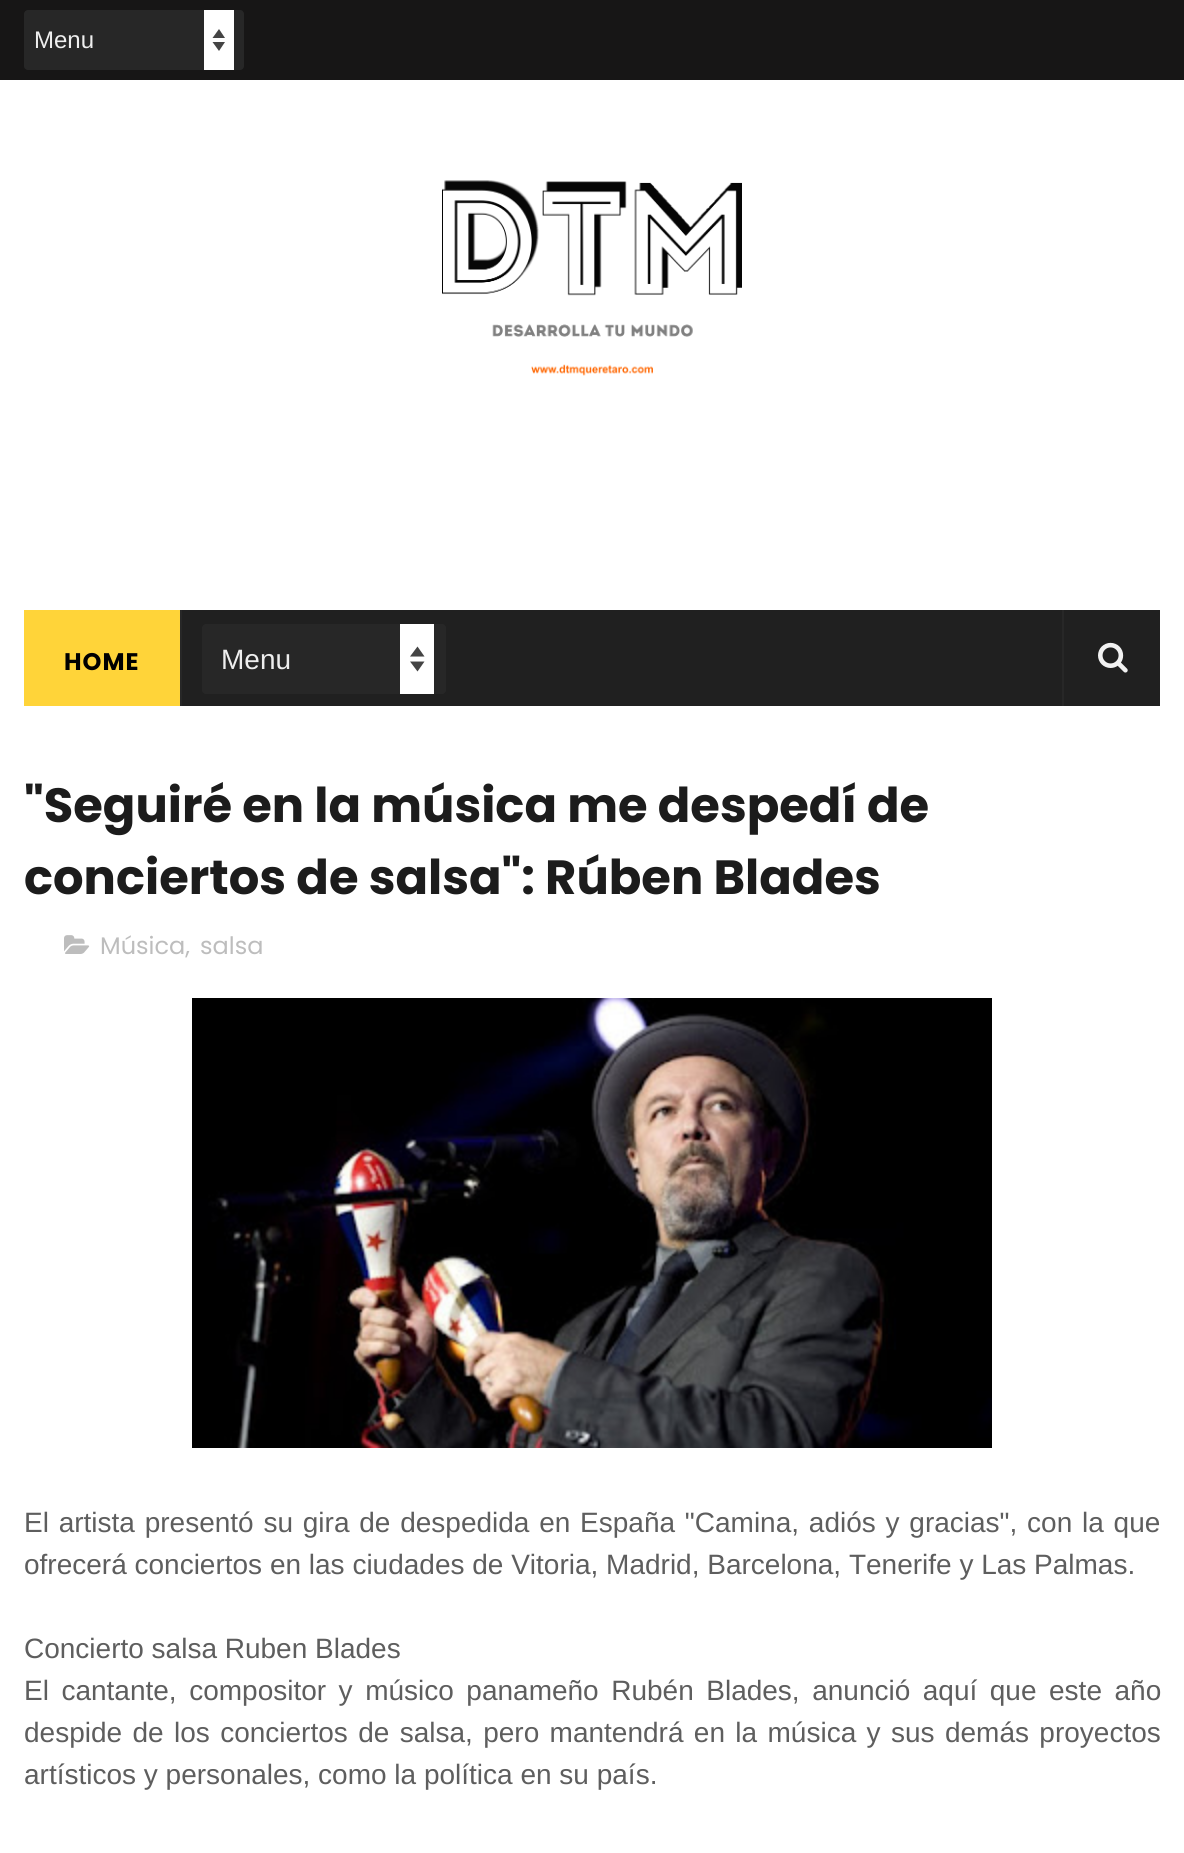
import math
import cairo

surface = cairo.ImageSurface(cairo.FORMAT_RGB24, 1184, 1853)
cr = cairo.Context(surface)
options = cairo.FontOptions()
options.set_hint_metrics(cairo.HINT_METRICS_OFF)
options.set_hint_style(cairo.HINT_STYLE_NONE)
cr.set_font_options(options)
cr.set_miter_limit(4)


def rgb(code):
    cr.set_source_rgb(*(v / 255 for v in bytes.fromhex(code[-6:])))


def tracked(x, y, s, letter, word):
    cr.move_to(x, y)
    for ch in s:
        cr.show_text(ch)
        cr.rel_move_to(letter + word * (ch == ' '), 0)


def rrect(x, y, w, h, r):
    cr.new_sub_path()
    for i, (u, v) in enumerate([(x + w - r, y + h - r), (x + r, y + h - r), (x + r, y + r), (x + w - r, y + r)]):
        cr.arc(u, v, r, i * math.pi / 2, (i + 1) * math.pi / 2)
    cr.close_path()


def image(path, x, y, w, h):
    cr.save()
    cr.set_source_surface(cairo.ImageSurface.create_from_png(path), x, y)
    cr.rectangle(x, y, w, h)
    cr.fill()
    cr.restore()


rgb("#ffffff")
cr.paint()
rgb("#171616")
cr.rectangle(0, 0, 1184, 80)
cr.fill()
rgb("#272727")
rrect(24, 10, 220, 60, 4)
cr.fill()
rgb("#ffffff")
cr.rectangle(204, 10, 30, 60)
cr.fill()
rgb("#444444")
cr.new_path()
cr.move_to(212.5, 38)
cr.line_to(219, 29)
cr.line_to(225, 38)
cr.close_path()
cr.move_to(225, 42)
cr.line_to(219, 51)
cr.line_to(212.5, 42)
cr.close_path()
cr.fill()
image("img/1.png", 442, 180, 300, 196)
for x, y, w, h, color in [
    (182, 610, 978, 96, "#202020"),
    (24, 610, 156, 96, "#ffd439"),
    (180, 610, 2, 96, "#272727"),
]:
    rgb(color)
    cr.rectangle(x, y, w, h)
    cr.fill()
rrect(202, 624, 244, 70, 4)
cr.fill()
rgb("#ffffff")
cr.rectangle(400, 624, 34, 70)
cr.fill()
rgb("#444444")
cr.new_path()
cr.move_to(410, 656.5)
cr.line_to(417.5, 646.5)
cr.line_to(424.5, 656.5)
cr.close_path()
cr.move_to(424.5, 661.5)
cr.line_to(417.5, 671.5)
cr.line_to(410, 661.5)
cr.close_path()
cr.fill()
rgb("#272727")
cr.rectangle(1062, 610, 2, 96)
cr.fill()
image("img/2.png", 1098, 642, 30, 31)
image("img/3.png", 64, 935, 26, 19)
image("img/4.png", 192, 998, 800, 450)
cr.select_font_face("Liberation Sans")
cr.set_font_size(24)
rgb("#eeeeee")
cr.move_to(34, 48)
cr.show_text("Menu")
cr.select_font_face("Poppins", cairo.FONT_SLANT_NORMAL, cairo.FONT_WEIGHT_BOLD)
rgb("#000000")
tracked(64, 670, "HOME", 1, 0)
cr.select_font_face("Liberation Sans")
cr.set_font_size(28)
rgb("#eeeeee")
cr.move_to(221, 669)
cr.show_text("Menu")
cr.select_font_face("Poppins", cairo.FONT_SLANT_NORMAL, cairo.FONT_WEIGHT_BOLD)
cr.set_font_size(48)
rgb("#1c1c1c")
cr.move_to(24, 822)
cr.show_text("\"Seguiré en la música me despedí de")
cr.move_to(24, 894)
cr.show_text("conciertos de salsa\": Rúben Blades")
cr.select_font_face("Poppins")
cr.set_font_size(24)
rgb("#bdbdbd")
cr.move_to(100, 954)
cr.show_text("Música,")
cr.move_to(200, 954)
cr.show_text("salsa")
cr.select_font_face("Liberation Sans")
cr.set_font_size(28)
rgb("#5e5e5e")
tracked(24, 1532, "El artista presentó su gira de despedida en España \"Camina, adiós y gracias\", con la que", 0, 2)
cr.move_to(24, 1574)
cr.show_text("ofrecerá conciertos en las ciudades de Vitoria, Madrid, Barcelona, Tenerife y Las Palmas.")
cr.move_to(24, 1658)
cr.show_text("Concierto salsa Ruben Blades")
tracked(24, 1700, "El cantante, compositor y músico panameño Rubén Blades, anunció aquí que este año", 0, 4.75)
tracked(24, 1742, "despide de los conciertos de salsa, pero mantendrá en la música y sus demás proyectos", 0, 2.6)
cr.move_to(24, 1784)
cr.show_text("artísticos y personales, como la política en su país.")
surface.write_to_png("page.png")
